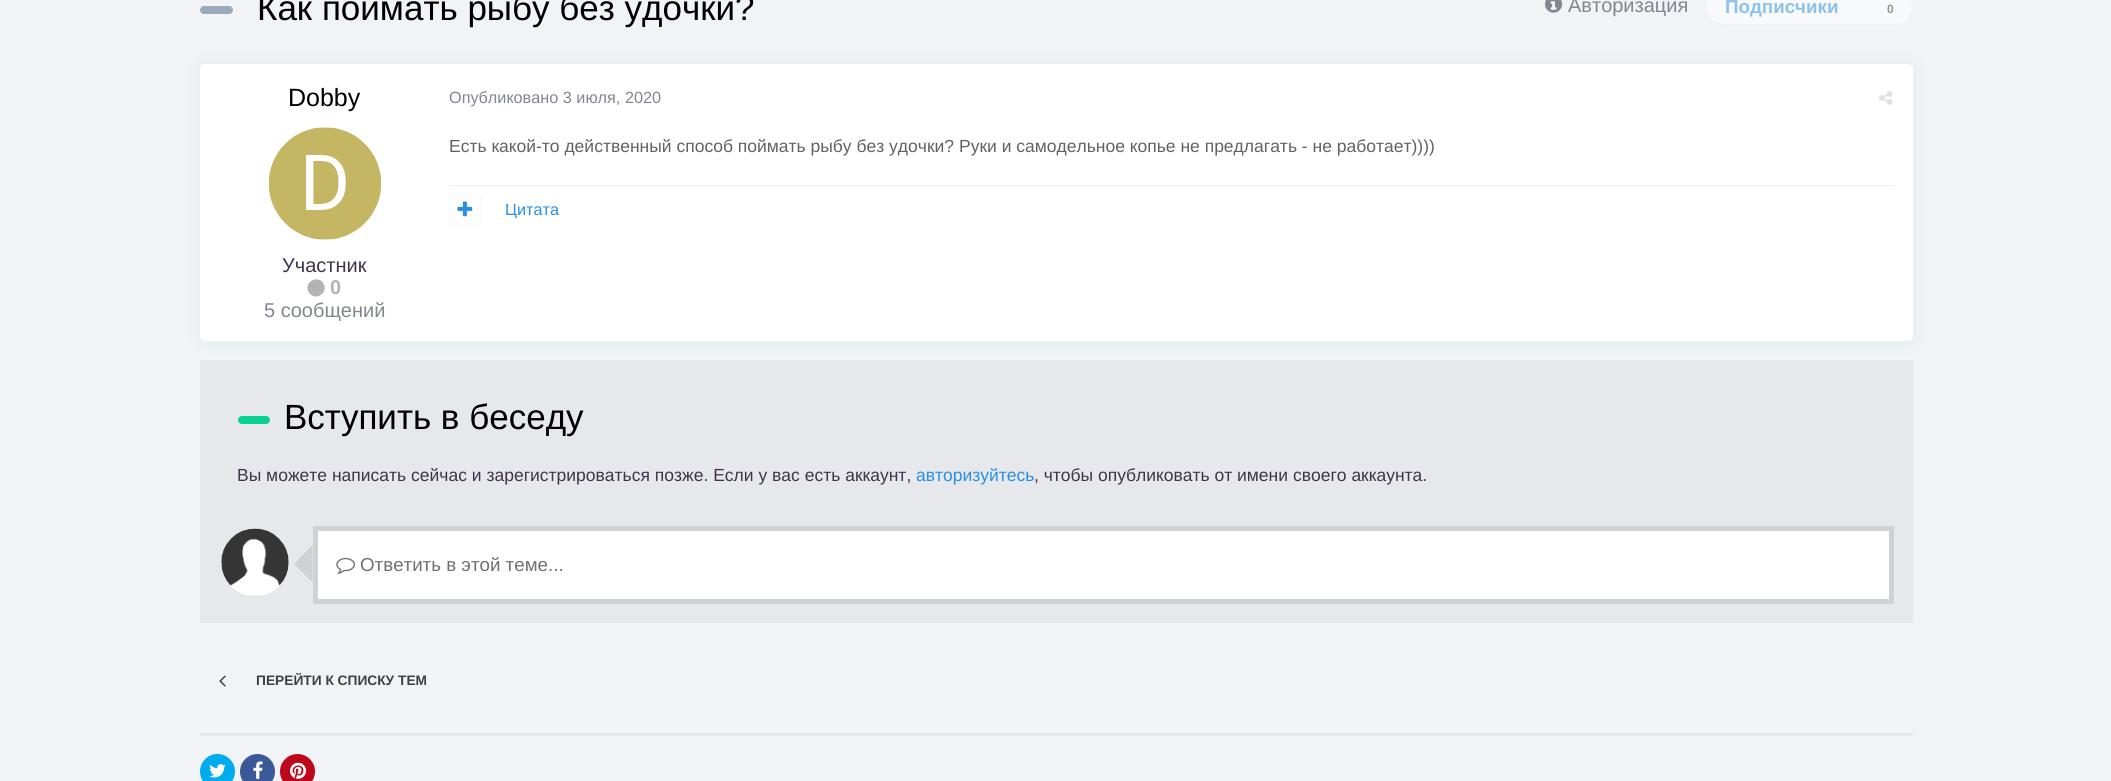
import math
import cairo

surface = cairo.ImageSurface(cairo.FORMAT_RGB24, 2111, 781)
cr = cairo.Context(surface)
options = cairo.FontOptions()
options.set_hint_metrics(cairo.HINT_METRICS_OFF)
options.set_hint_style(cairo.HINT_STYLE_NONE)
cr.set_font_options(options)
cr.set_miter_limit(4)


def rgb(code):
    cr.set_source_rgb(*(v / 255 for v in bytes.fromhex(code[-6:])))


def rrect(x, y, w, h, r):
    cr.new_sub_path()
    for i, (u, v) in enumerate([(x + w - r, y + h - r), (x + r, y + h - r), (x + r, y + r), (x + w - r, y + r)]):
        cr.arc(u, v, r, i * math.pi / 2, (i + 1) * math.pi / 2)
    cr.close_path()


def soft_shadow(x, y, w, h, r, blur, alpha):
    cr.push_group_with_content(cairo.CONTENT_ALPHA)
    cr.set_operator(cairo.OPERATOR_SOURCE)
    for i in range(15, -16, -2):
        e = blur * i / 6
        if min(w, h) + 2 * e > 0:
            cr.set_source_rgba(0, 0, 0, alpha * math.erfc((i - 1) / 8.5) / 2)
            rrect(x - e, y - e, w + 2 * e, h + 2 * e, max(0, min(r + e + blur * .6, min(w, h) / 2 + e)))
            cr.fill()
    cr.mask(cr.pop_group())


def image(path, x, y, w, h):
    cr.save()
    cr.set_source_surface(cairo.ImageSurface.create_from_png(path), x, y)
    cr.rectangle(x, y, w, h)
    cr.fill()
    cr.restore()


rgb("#f1f3f6")
cr.paint()
rgb("#9caabe")
rrect(200, 6, 33, 8, 4)
cr.fill()
image("img/1.png", 1545, 0, 18, 13)
rgb("#f8f9fb")
rrect(1705, -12, 208, 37, 18.5)
cr.fill()
rrect(1705.5, -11.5, 207, 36, 18)
cr.set_source_rgba(0.475, 0.478, 0.482, 0.07)
cr.set_line_width(1)
cr.stroke()
rgb("#f8f9fb")
rrect(1875, -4, 33, 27, 4)
cr.fill()
rgb("#e6e8eb")
cr.rectangle(200, 360, 1713, 263)
cr.fill()
rgb("#009c6a")
soft_shadow(201, 64, 1713, 277, 5, 9.5, 0.07)
rgb("#ffffff")
rrect(200, 64, 1713, 277, 5)
cr.fill()
image("img/2.png", 269, 127, 112, 113)
rgb("#b3b3b3")
cr.new_path()
cr.move_to(323.5, 283.5)
cr.curve_to(329, 293.5, 314.5, 302, 308.5, 292)
cr.curve_to(303, 282.5, 318, 274, 323.5, 283.5)
cr.close_path()
cr.fill()
image("img/3.png", 1878, 91, 15, 14)
rgb("#ececec")
cr.rectangle(450, 185, 1444, 1)
cr.fill()
cr.rectangle(449.5, 195.5, 31, 29)
cr.set_source_rgba(0, 0, 0, 0.03)
cr.stroke()
image("img/4.png", 457, 201, 16, 16)
rgb("#08d291")
rrect(238, 416, 32, 8, 4)
cr.fill()
rgb("#ffffff")
rrect(221, 529, 68, 67, 33.5)
cr.fill()
image("img/5.png", 221, 528, 68, 68)
rgb("#cfd1d4")
cr.rectangle(313, 526, 1581, 78)
cr.fill()
cr.new_path()
cr.move_to(312.5, 545)
cr.line_to(312.5, 582.5)
cr.line_to(294, 564)
cr.close_path()
cr.fill()
rgb("#ffffff")
cr.rectangle(318, 531, 1571, 68)
cr.fill()
image("img/6.png", 336, 557, 19, 17)
image("img/7.png", 219, 675, 7, 12)
rgb("#e5e7ea")
cr.rectangle(200, 733, 1713, 3)
cr.fill()
rgb("#00aced")
cr.arc(217.5, 771.5, 17.5, 0, 2 * math.pi)
cr.fill()
image("img/8.png", 209, 764, 17, 14)
rgb("#3b5998")
cr.arc(257.5, 771.5, 17.5, 0, 2 * math.pi)
cr.fill()
image("img/9.png", 253, 761, 10, 18)
rgb("#bd081c")
cr.arc(297.5, 771.5, 17.5, 0, 2 * math.pi)
cr.fill()
image("img/10.png", 290, 762, 17, 17)
cr.select_font_face("Liberation Sans")
cr.set_font_size(35)
rgb("#000000")
cr.move_to(257, 20)
cr.show_text("Как поймать рыбу без удочки?")
cr.set_font_size(20)
rgb("#82868e")
cr.move_to(1568, 12)
cr.show_text("Авторизация")
cr.select_font_face("Liberation Sans", cairo.FONT_SLANT_NORMAL, cairo.FONT_WEIGHT_BOLD)
cr.set_font_size(18.75)
rgb("#8dc1ec")
cr.move_to(1725, 13)
cr.show_text("Подписчики")
cr.set_font_size(12)
rgb("#929395")
cr.move_to(1887, 13)
cr.show_text("0")
cr.select_font_face("Liberation Sans")
cr.set_font_size(25)
rgb("#000000")
cr.move_to(288, 106)
cr.show_text("Dobby")
cr.set_font_size(20)
rgb("#41334b")
cr.move_to(282, 272)
cr.show_text("Участник")
cr.select_font_face("Liberation Sans", cairo.FONT_SLANT_NORMAL, cairo.FONT_WEIGHT_BOLD)
rgb("#b3b3b3")
cr.move_to(330, 294)
cr.show_text("0")
cr.select_font_face("Liberation Sans")
rgb("#82868e")
cr.move_to(264, 317)
cr.show_text("5 сообщений")
cr.set_font_size(16.25)
cr.move_to(449, 103)
cr.show_text("Опубликовано 3 июля, 2020")
cr.set_font_size(17.5)
rgb("#606266")
cr.move_to(449, 152)
cr.show_text("Есть какой-то действенный способ поймать рыбу без удочки? Руки и самодельное копье не предлагать - не работает))))")
cr.set_font_size(16.25)
rgb("#298fe2")
cr.move_to(505, 215)
cr.show_text("Цитата")
cr.set_font_size(35)
rgb("#000000")
cr.move_to(284, 429)
cr.show_text("Вступить в беседу")
cr.set_font_size(17.5)
rgb("#41334b")
cr.move_to(237, 481)
cr.show_text("Вы можете написать сейчас и зарегистрироваться позже. Если у вас есть аккаунт,")
rgb("#298fe2")
cr.move_to(916, 481)
cr.show_text("авторизуйтесь")
rgb("#41334b")
cr.move_to(1034, 481)
cr.show_text(", чтобы опубликовать от имени своего аккаунта.")
cr.set_font_size(18.75)
rgb("#707070")
cr.move_to(360, 571)
cr.show_text("Ответить в этой теме...")
cr.save()
cr.rectangle(256, 673, 170, 22)
cr.clip()
cr.select_font_face("Liberation Sans", cairo.FONT_SLANT_NORMAL, cairo.FONT_WEIGHT_BOLD)
cr.set_font_size(13.75)
rgb("#404040")
cr.move_to(256, 685)
cr.show_text("ПЕРЕЙТИ К СПИСКУ ТЕМ")
cr.restore()
surface.write_to_png("page.png")
